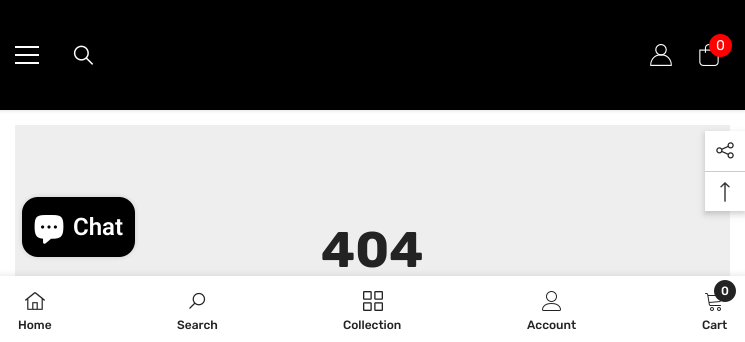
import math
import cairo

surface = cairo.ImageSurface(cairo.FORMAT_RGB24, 745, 342)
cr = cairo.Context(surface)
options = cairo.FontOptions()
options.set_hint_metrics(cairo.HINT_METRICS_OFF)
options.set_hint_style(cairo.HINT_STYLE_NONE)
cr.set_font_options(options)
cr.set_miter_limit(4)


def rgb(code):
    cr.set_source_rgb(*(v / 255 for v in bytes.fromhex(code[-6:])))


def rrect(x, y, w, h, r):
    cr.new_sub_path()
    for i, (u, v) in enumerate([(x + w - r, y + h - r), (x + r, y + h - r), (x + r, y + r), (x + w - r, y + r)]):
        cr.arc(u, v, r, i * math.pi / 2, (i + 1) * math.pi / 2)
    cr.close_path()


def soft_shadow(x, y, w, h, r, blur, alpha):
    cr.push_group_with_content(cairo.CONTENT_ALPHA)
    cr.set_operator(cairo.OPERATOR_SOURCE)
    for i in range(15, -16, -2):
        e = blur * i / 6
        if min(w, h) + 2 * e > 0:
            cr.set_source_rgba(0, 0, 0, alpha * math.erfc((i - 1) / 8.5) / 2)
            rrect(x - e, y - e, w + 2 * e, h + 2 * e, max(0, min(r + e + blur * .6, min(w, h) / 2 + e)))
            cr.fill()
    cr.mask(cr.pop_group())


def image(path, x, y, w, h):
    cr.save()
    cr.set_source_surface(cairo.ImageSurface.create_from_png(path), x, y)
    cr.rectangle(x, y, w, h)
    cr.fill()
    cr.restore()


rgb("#ffffff")
cr.paint()
rgb("#000000")
soft_shadow(0, 1, 745, 110, 0, 1.5, 0.1)
for x, y, w, h, color in [
    (0, 0, 745, 110, "#000000"),
    (15, 54, 24, 2, "#ffffff"),
    (15, 46, 24, 2, "#ffffff"),
    (15, 62, 24, 2, "#ffffff"),
]:
    rgb(color)
    cr.rectangle(x, y, w, h)
    cr.fill()
image("img/1.png", 73, 45, 21, 20)
image("img/2.png", 650, 44, 22, 22)
image("img/3.png", 699, 44, 20, 22)
rgb("#ff0000")
cr.arc(720.5, 45.5, 11.5, 0, 2 * math.pi)
cr.fill()
rgb("#eeeeee")
cr.rectangle(15, 125, 715, 151)
cr.fill()
rgb("#000000")
soft_shadow(0, 276, 745, 66, 0, 4.5, 0.12)
rgb("#ffffff")
cr.rectangle(0, 276, 745, 66)
cr.fill()
image("img/4.png", 25, 292, 20, 18)
image("img/5.png", 189, 292, 17, 17)
image("img/6.png", 363, 291, 20, 20)
image("img/7.png", 542, 291, 19, 20)
image("img/8.png", 705, 293, 16, 18)
rgb("#232323")
cr.arc(725, 291, 11, 0, 2 * math.pi)
cr.fill()
rgb("#000000")
soft_shadow(22, 197, 113, 60, 16, 2.5, 0.15)
rgb("#000000")
rrect(22, 197, 113, 60, 16)
cr.fill()
image("img/9.png", 34, 215, 30, 29)
rgb("#000000")
soft_shadow(705, 134, 40, 80, 0, 3.5, 0.2)
rgb("#ffffff")
cr.rectangle(705, 131, 40, 80)
cr.fill()
image("img/10.png", 716, 142, 18, 17)
rgb("#cccccc")
cr.rectangle(705, 171, 40, 1)
cr.fill()
image("img/11.png", 720, 182, 10, 20)
cr.select_font_face("Rubik")
cr.set_font_size(14)
rgb("#ffffff")
cr.move_to(716, 50)
cr.show_text("0")
cr.select_font_face("Rubik", cairo.FONT_SLANT_NORMAL, cairo.FONT_WEIGHT_BOLD)
cr.set_font_size(50)
rgb("#232323")
cr.move_to(321, 267)
cr.show_text("404")
cr.select_font_face("Rubik Medium")
cr.set_font_size(12)
for x, y, s in [
    (18, 329, "Home"),
    (177, 329, "Search"),
    (343, 329, "Collection"),
    (527, 329, "Account"),
]:
    cr.move_to(x, y)
    cr.show_text(s)
rgb("#ffffff")
cr.move_to(721, 295)
cr.show_text("0")
rgb("#232323")
cr.move_to(702, 329)
cr.show_text("Cart")
cr.select_font_face("Roboto SemiBold")
cr.set_font_size(24)
rgb("#ffffff")
cr.move_to(73, 235)
cr.show_text("Chat")
surface.write_to_png("page.png")
